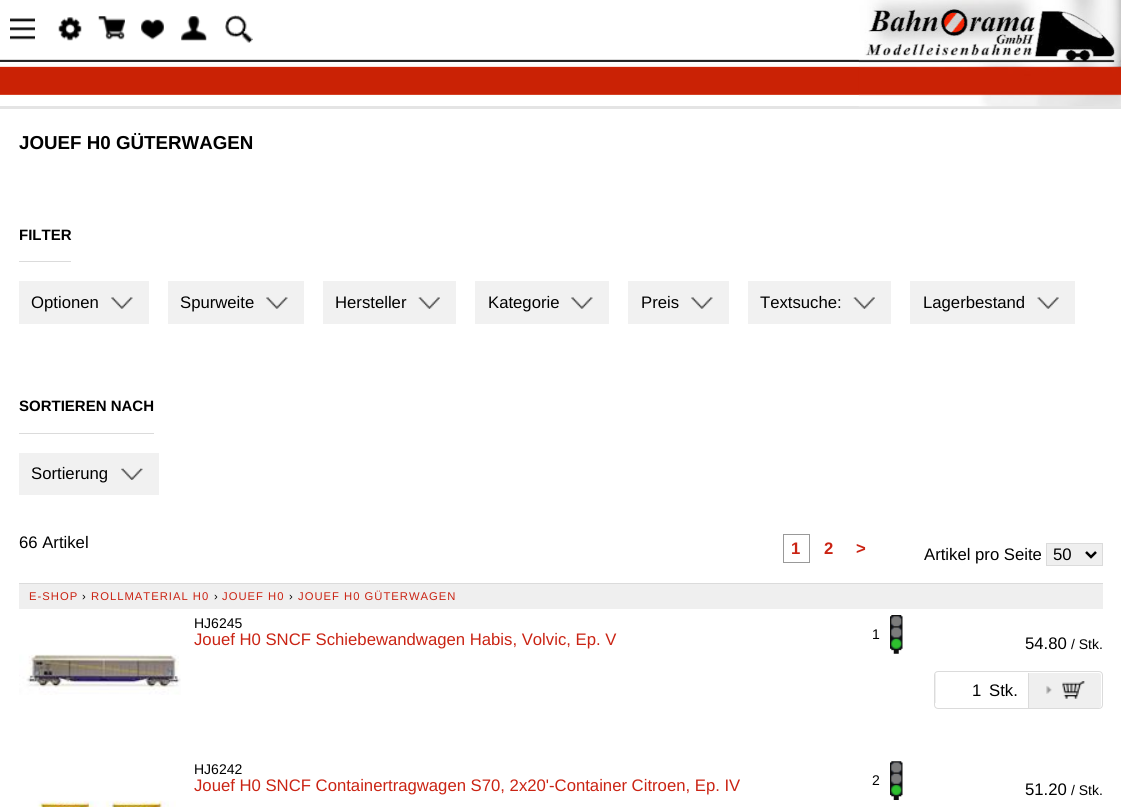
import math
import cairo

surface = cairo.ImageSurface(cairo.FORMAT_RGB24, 1121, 807)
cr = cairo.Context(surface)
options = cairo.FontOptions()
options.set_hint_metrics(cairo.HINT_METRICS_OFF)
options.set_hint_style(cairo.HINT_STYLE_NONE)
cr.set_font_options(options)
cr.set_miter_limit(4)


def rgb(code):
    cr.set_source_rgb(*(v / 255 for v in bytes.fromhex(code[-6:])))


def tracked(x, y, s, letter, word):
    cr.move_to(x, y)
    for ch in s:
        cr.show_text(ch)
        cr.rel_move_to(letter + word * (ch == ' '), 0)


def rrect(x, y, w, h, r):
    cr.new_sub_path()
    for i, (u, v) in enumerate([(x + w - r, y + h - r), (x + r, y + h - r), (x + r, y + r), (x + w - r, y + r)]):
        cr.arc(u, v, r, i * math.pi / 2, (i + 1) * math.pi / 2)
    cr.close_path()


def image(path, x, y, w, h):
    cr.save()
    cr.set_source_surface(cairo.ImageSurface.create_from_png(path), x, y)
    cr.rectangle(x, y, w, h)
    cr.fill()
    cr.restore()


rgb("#ffffff")
cr.paint()
image("img/1.png", 0, 59, 1121, 38)
rgb("#e4e4e4")
cr.rectangle(0, 106, 1121, 3)
cr.fill()
image("img/2.png", 10, 18, 25, 22)
image("img/3.png", 58, 17, 24, 24)
image("img/4.png", 98, 16, 27, 24)
image("img/5.png", 141, 19, 23, 21)
image("img/6.png", 181, 16, 26, 25)
image("img/7.png", 858, 0, 263, 107)
image("img/8.png", 225, 15, 28, 28)
rgb("#dbdbdb")
cr.rectangle(19, 261, 52, 1)
cr.fill()
rgb("#f1f1f1")
cr.rectangle(19, 281, 130, 43)
cr.fill()
image("img/9.png", 111, 297, 22, 12)
cr.rectangle(168, 281, 136, 43)
cr.fill()
image("img/9.png", 266, 297, 22, 12)
cr.rectangle(323, 281, 133, 43)
cr.fill()
image("img/10.png", 418, 297, 22, 12)
cr.rectangle(475, 281, 134, 43)
cr.fill()
image("img/9.png", 571, 297, 22, 12)
cr.rectangle(628, 281, 101, 43)
cr.fill()
image("img/9.png", 691, 297, 22, 12)
cr.rectangle(748, 281, 143, 43)
cr.fill()
image("img/11.png", 853, 297, 22, 12)
cr.rectangle(910, 281, 165, 43)
cr.fill()
image("img/12.png", 1037, 297, 22, 12)
rgb("#dbdbdb")
cr.rectangle(19, 433, 135, 1)
cr.fill()
rgb("#f1f1f1")
cr.rectangle(19, 453, 140, 42)
cr.fill()
image("img/13.png", 121, 468, 22, 12)
cr.rectangle(783.5, 534.5, 26, 28)
rgb("#999999")
cr.set_line_width(1)
cr.stroke()
rgb("#efefef")
cr.rectangle(1046.5, 543.5, 56, 22)
cr.fill_preserve()
rgb("#dbdbdb")
cr.stroke()
cr.new_path()
cr.move_to(1086, 552)
cr.line_to(1091, 557)
cr.line_to(1096, 552)
rgb("#000000")
cr.set_line_width(2.5)
cr.stroke()
rgb("#efefef")
cr.rectangle(19, 584, 1084, 25)
cr.fill()
rgb("#dbdbdb")
cr.rectangle(19, 583, 1084, 1)
cr.fill()
image("img/14.png", 890, 615, 13, 39)
image("img/15.png", 19, 654, 162, 41)
rrect(934.5, 671.5, 168, 37, 3.5)
cr.set_line_width(1)
cr.stroke()
rgb("#efefef")
cr.rectangle(935, 673, 1, 30)
cr.fill()
cr.new_path()
cr.move_to(1028, 673)
cr.line_to(1098.5, 673)
cr.curve_to(1100, 673, 1101, 674, 1101, 675.5)
cr.line_to(1101, 705.5)
cr.curve_to(1101, 707, 1100, 708, 1098.5, 708)
cr.line_to(1028, 708)
cr.close_path()
cr.fill()
image("img/16.png", 1046, 681, 39, 18)
rgb("#dbdbdb")
cr.rectangle(1028, 673, 1, 35)
cr.fill()
image("img/17.png", 890, 761, 13, 39)
image("img/18.png", 37, 800, 139, 7)
cr.select_font_face("Liberation Sans", cairo.FONT_SLANT_NORMAL, cairo.FONT_WEIGHT_BOLD)
cr.set_font_size(18.75)
rgb("#000000")
cr.move_to(19, 149)
cr.show_text("JOUEF H0 GÜTERWAGEN")
cr.set_font_size(15)
cr.move_to(19, 240)
cr.show_text("FILTER")
cr.select_font_face("Liberation Sans")
cr.set_font_size(16.7)
for x, y, s in [
    (31, 308, "Optionen"),
    (180, 308, "Spurweite"),
    (335, 308, "Hersteller"),
    (488, 308, "Kategorie"),
    (641, 308, "Preis"),
    (760, 308, "Textsuche:"),
    (923, 308, "Lagerbestand"),
]:
    cr.move_to(x, y)
    cr.show_text(s)
cr.select_font_face("Liberation Sans", cairo.FONT_SLANT_NORMAL, cairo.FONT_WEIGHT_BOLD)
cr.set_font_size(15)
cr.move_to(19, 411)
cr.show_text("SORTIEREN NACH")
cr.select_font_face("Liberation Sans")
cr.set_font_size(16.7)
cr.move_to(31, 479)
cr.show_text("Sortierung")
cr.move_to(19, 548)
cr.show_text("66 Artikel")
cr.select_font_face("Liberation Sans", cairo.FONT_SLANT_NORMAL, cairo.FONT_WEIGHT_BOLD)
rgb("#ca2313")
for x, y, s in [
    (791, 554, "1"),
    (824, 554, "2"),
    (856, 554, ">"),
]:
    cr.move_to(x, y)
    cr.show_text(s)
cr.select_font_face("Liberation Sans")
rgb("#000000")
cr.move_to(924, 560)
cr.show_text("Artikel pro Seite")
cr.move_to(1053, 560)
cr.show_text("50")
cr.set_font_size(11.25)
rgb("#ca2313")
tracked(29, 600, "E-SHOP", 1, 0)
rgb("#000000")
tracked(82, 600, "›", 1, 0)
rgb("#ca2313")
tracked(91, 600, "ROLLMATERIAL H0", 1, 0)
rgb("#000000")
tracked(214, 600, "›", 1, 0)
rgb("#ca2313")
tracked(222, 600, "JOUEF H0", 1, 0)
rgb("#000000")
tracked(289, 600, "›", 1, 0)
rgb("#ca2313")
tracked(298, 600, "JOUEF H0 GÜTERWAGEN", 1, 0)
cr.set_font_size(14)
rgb("#000000")
cr.move_to(194, 628)
cr.show_text("HJ6245")
cr.set_font_size(16.7)
rgb("#ca2313")
cr.move_to(194, 645)
cr.show_text("Jouef H0 SNCF Schiebewandwagen Habis, Volvic, Ep. V")
cr.set_font_size(14)
rgb("#000000")
cr.move_to(872, 639)
cr.show_text("1")
cr.set_font_size(16.7)
cr.move_to(1025, 649)
cr.show_text("54.80")
cr.set_font_size(14)
cr.move_to(1071, 649)
cr.show_text("/ Stk.")
cr.set_font_size(16.7)
cr.move_to(972, 696)
cr.show_text("1")
cr.move_to(989, 696)
cr.show_text("Stk.")
cr.set_font_size(14)
cr.move_to(194, 774)
cr.show_text("HJ6242")
cr.set_font_size(16.7)
rgb("#ca2313")
cr.move_to(194, 791)
cr.show_text("Jouef H0 SNCF Containertragwagen S70, 2x20'-Container Citroen, Ep. IV")
cr.set_font_size(14)
rgb("#000000")
cr.move_to(872, 785)
cr.show_text("2")
cr.set_font_size(16.7)
cr.move_to(1025, 795)
cr.show_text("51.20")
cr.set_font_size(14)
cr.move_to(1071, 795)
cr.show_text("/ Stk.")
surface.write_to_png("page.png")
